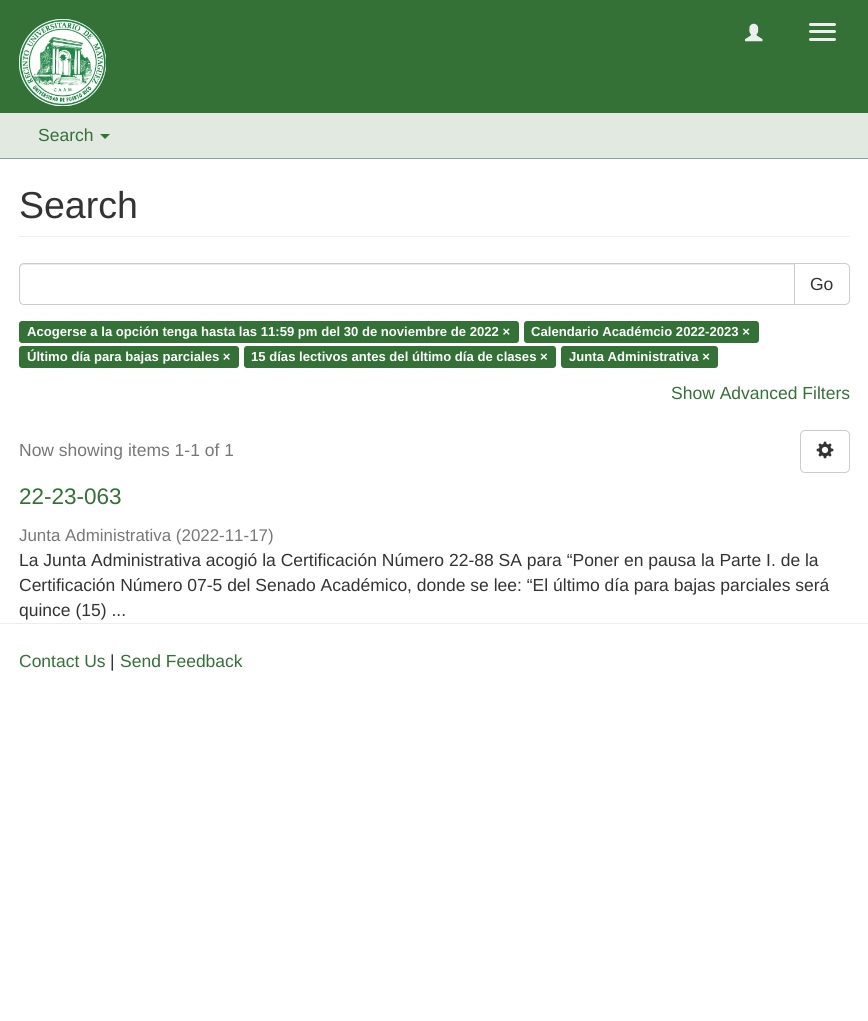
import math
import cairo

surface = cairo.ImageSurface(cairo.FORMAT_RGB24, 868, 1021)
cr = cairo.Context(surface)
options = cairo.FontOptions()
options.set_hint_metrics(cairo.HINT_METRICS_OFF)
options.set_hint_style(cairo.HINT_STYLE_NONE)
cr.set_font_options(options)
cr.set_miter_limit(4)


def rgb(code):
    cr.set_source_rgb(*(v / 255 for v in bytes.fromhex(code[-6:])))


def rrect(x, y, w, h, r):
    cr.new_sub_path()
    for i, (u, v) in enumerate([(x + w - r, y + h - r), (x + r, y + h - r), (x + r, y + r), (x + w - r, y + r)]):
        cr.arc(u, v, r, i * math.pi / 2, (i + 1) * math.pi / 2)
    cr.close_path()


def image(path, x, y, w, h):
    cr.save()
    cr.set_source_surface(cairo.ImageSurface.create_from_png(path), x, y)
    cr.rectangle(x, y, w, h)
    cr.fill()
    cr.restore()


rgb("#ffffff")
cr.paint()
rgb("#337137")
cr.rectangle(0, 0, 868, 113)
cr.fill()
image("img/1.png", 19, 19, 87, 87)
image("img/2.png", 745, 23, 18, 19)
rgb("#eeeeee")
rrect(809, 23, 27, 3, 1.5)
cr.fill()
rrect(809, 30, 27, 3, 1.5)
cr.fill()
rrect(809, 38, 27, 3, 1.5)
cr.fill()
rgb("#e1e9e1")
cr.rectangle(0, 113, 868, 45)
cr.fill()
rgb("#8b9eb2")
cr.rectangle(0, 158, 868, 1)
cr.fill()
rgb("#337137")
cr.new_path()
cr.move_to(100, 134)
cr.line_to(110, 134)
cr.line_to(105, 139)
cr.close_path()
cr.fill()
rgb("#eeeeee")
cr.rectangle(19, 236, 831, 1)
cr.fill()
cr.new_path()
cr.move_to(794.5, 263.5)
cr.line_to(845, 263.5)
cr.curve_to(847.5, 263.5, 849.5, 265.5, 849.5, 268)
cr.line_to(849.5, 300)
cr.curve_to(849.5, 302.5, 847.5, 304.5, 845, 304.5)
cr.line_to(794.5, 304.5)
cr.close_path()
rgb("#cccccc")
cr.set_line_width(1)
cr.stroke()
rgb("#ffffff")
cr.new_path()
cr.move_to(24, 263)
cr.line_to(795, 263)
cr.line_to(795, 305)
cr.line_to(24, 305)
cr.curve_to(21, 305, 19, 303, 19, 300)
cr.line_to(19, 268)
cr.curve_to(19, 265, 21, 263, 24, 263)
cr.close_path()
cr.fill()
rgb("#ececec")
cr.new_path()
cr.move_to(24, 265)
cr.line_to(794, 265)
cr.line_to(794, 264)
cr.line_to(24, 264)
cr.curve_to(22, 264, 20, 266, 20, 268)
cr.line_to(20, 269)
cr.curve_to(20, 267, 22, 265, 24, 265)
cr.close_path()
cr.fill()
cr.new_path()
cr.move_to(24, 263.5)
cr.line_to(794.5, 263.5)
cr.line_to(794.5, 304.5)
cr.line_to(24, 304.5)
cr.curve_to(21.5, 304.5, 19.5, 302.5, 19.5, 300)
cr.line_to(19.5, 268)
cr.curve_to(19.5, 265.5, 21.5, 263.5, 24, 263.5)
cr.close_path()
rgb("#cccccc")
cr.stroke()
rgb("#337137")
rrect(19, 321, 500, 22, 3)
cr.fill()
rrect(524, 321, 235, 22, 3)
cr.fill()
rrect(19, 346, 220, 22, 3)
cr.fill()
rrect(244, 346, 312, 22, 3)
cr.fill()
rrect(561, 346, 157, 22, 3)
cr.fill()
rrect(800.5, 430.5, 49, 42, 4.5)
rgb("#cccccc")
cr.stroke()
image("img/3.png", 816, 441, 18, 18)
rgb("#eeeeee")
cr.rectangle(0, 623, 868, 1)
cr.fill()
cr.select_font_face("Liberation Sans")
cr.set_font_size(17.5)
rgb("#337137")
cr.move_to(38, 141)
cr.show_text("Search")
cr.set_font_size(37.5)
rgb("#333333")
cr.move_to(19, 218)
cr.show_text("Search")
cr.set_font_size(17.5)
cr.move_to(810, 290)
cr.show_text("Go")
cr.select_font_face("Liberation Sans", cairo.FONT_SLANT_NORMAL, cairo.FONT_WEIGHT_BOLD)
cr.set_font_size(13.1)
rgb("#ffffff")
for x, y, s in [
    (27, 336, "Acogerse a la opción tenga hasta las 11:59 pm del 30 de noviembre de 2022 ×"),
    (531, 336, "Calendario Académcio 2022-2023 ×"),
    (27, 361, "Último día para bajas parciales ×"),
    (251, 361, "15 días lectivos antes del último día de clases ×"),
    (569, 361, "Junta Administrativa ×"),
]:
    cr.move_to(x, y)
    cr.show_text(s)
cr.select_font_face("Liberation Sans")
cr.set_font_size(17.5)
rgb("#337137")
cr.move_to(671, 399)
cr.show_text("Show Advanced Filters")
rgb("#777777")
cr.move_to(19, 456)
cr.show_text("Now showing items 1-1 of 1")
cr.set_font_size(22.5)
rgb("#337137")
cr.move_to(19, 504)
cr.show_text("22-23-063")
cr.set_font_size(16.9)
rgb("#777777")
cr.move_to(19, 541)
cr.show_text("Junta Administrativa (2022-11-17)")
cr.set_font_size(17.5)
rgb("#333333")
for x, y, s in [
    (19, 566, "La Junta Administrativa acogió la Certificación Número 22-88 SA para “Poner en pausa la Parte I. de la"),
    (19, 591, "Certificación Número 07-5 del Senado Académico, donde se lee: “El último día para bajas parciales será"),
    (19, 616, "quince (15) ..."),
]:
    cr.move_to(x, y)
    cr.show_text(s)
rgb("#337137")
cr.move_to(19, 667)
cr.show_text("Contact Us")
rgb("#333333")
cr.move_to(110, 667)
cr.show_text("|")
rgb("#337137")
cr.move_to(120, 667)
cr.show_text("Send Feedback")
surface.write_to_png("page.png")
